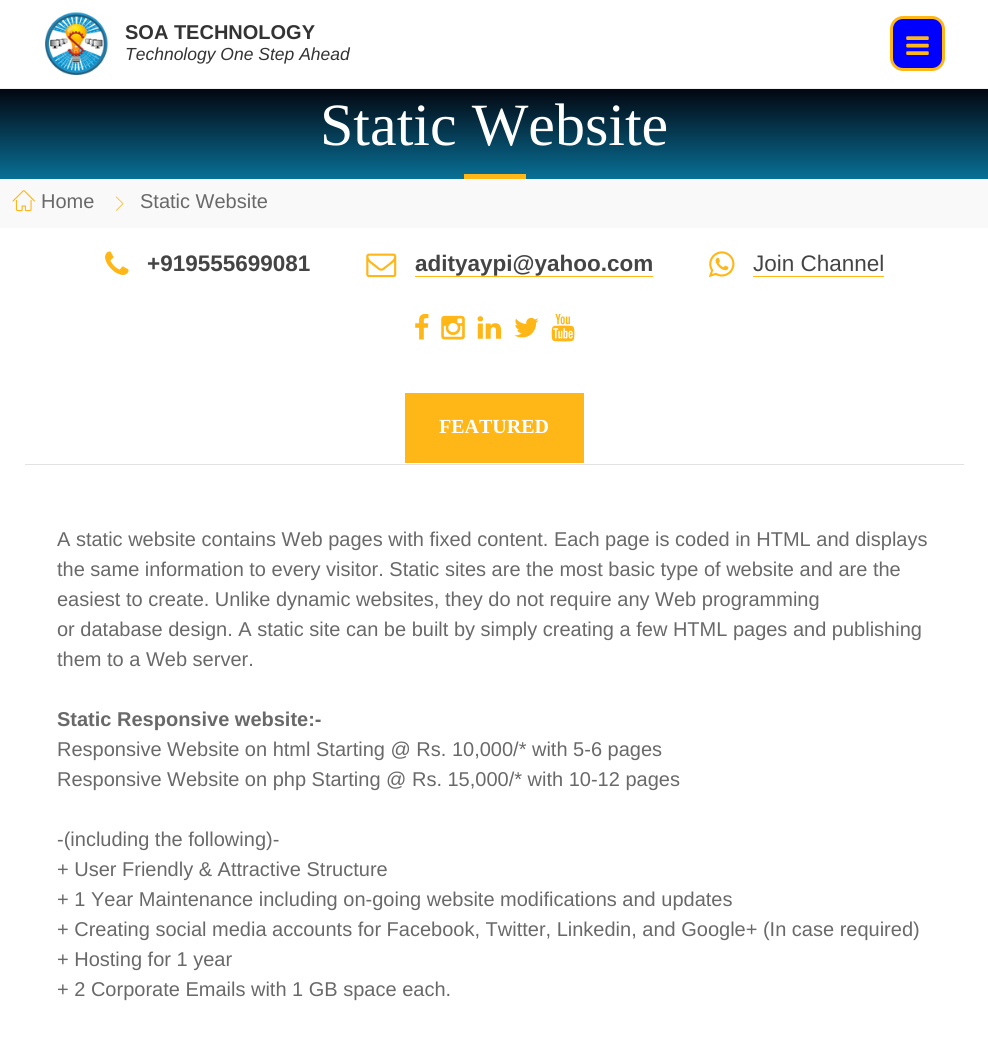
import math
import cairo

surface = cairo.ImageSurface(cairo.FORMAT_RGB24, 988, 1053)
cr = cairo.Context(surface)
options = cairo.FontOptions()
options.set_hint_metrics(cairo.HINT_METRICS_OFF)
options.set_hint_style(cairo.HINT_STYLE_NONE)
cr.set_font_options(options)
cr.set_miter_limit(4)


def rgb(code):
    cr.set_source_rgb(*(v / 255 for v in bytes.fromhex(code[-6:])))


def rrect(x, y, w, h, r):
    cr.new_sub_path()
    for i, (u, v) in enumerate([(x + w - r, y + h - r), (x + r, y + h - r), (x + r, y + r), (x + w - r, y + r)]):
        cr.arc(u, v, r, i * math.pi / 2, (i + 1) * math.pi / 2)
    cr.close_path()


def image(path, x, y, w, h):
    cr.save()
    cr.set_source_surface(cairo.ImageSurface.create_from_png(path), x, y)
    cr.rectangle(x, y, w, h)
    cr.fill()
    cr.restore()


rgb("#ffffff")
cr.paint()
rgb("#f1f1f1")
cr.rectangle(0, 88, 988, 1)
cr.fill()
image("img/1.png", 45, 12, 63, 63)
rgb("#0000ff")
rrect(891.5, 17.5, 52, 52, 11.5)
cr.fill_preserve()
rgb("#ffb617")
cr.set_line_width(3)
cr.stroke()
image("img/2.png", 906, 36, 23, 19)
gradient = cairo.LinearGradient(494, 89, 494, 179)
gradient.add_color_stop_rgba(0, 0.012, 0.024, 0.063, 1)
gradient.add_color_stop_rgba(1, 0.031, 0.439, 0.588, 1)
cr.set_source(gradient)
cr.rectangle(0, 89, 988, 90)
cr.fill()
rgb("#ffb617")
cr.rectangle(464, 174, 62, 5)
cr.fill()
rgb("#f9f9f9")
cr.rectangle(0, 179, 988, 49)
cr.fill()
image("img/3.png", 12, 190, 23, 22)
image("img/4.png", 115, 196, 9, 15)
rgb("#e2e2e2")
cr.rectangle(25, 464, 939, 1)
cr.fill()
image("img/5.png", 105, 251, 24, 24)
image("img/6.png", 366, 253, 31, 25)
rgb("#ffb617")
cr.rectangle(415, 276, 238, 1)
cr.fill()
image("img/7.png", 708, 251, 27, 27)
cr.rectangle(753, 276, 131, 1)
cr.fill()
image("img/8.png", 415, 313, 14, 27)
image("img/9.png", 441, 315, 24, 25)
image("img/10.png", 477, 316, 25, 23)
image("img/11.png", 514, 317, 25, 21)
image("img/12.png", 551, 313, 24, 29)
cr.rectangle(405, 393, 179, 70)
cr.fill()
cr.select_font_face("Liberation Sans", cairo.FONT_SLANT_NORMAL, cairo.FONT_WEIGHT_BOLD)
cr.set_font_size(20)
rgb("#333333")
cr.move_to(125, 39)
cr.show_text("SOA TECHNOLOGY")
cr.select_font_face("Liberation Sans", cairo.FONT_SLANT_ITALIC)
cr.set_font_size(17.5)
cr.move_to(125, 60)
cr.show_text("Technology One Step Ahead")
cr.select_font_face("Liberation Serif")
cr.set_font_size(60)
rgb("#ffffff")
cr.move_to(320, 145)
cr.show_text("Static Website")
cr.select_font_face("Liberation Sans")
cr.set_font_size(20)
rgb("#696969")
cr.move_to(41, 208)
cr.show_text("Home")
cr.move_to(140, 208)
cr.show_text("Static Website")
cr.select_font_face("Liberation Sans", cairo.FONT_SLANT_NORMAL, cairo.FONT_WEIGHT_BOLD)
cr.set_font_size(22.5)
rgb("#444444")
cr.move_to(147, 271)
cr.show_text("+919555699081")
cr.move_to(415, 271)
cr.show_text("adityaypi@yahoo.com")
cr.select_font_face("Liberation Sans")
cr.move_to(753, 271)
cr.show_text("Join Channel")
cr.select_font_face("Liberation Serif", cairo.FONT_SLANT_NORMAL, cairo.FONT_WEIGHT_BOLD)
cr.set_font_size(20)
rgb("#ffffff")
cr.move_to(439, 433)
cr.show_text("FEATURED")
cr.select_font_face("Liberation Sans")
rgb("#696969")
for x, y, s in [
    (57, 546, "A static website contains Web pages with fixed content. Each page is coded in HTML and displays"),
    (57, 576, "the same information to every visitor. Static sites are the most basic type of website and are the"),
    (57, 606, "easiest to create. Unlike dynamic websites, they do not require any Web programming"),
    (57, 636, "or database design. A static site can be built by simply creating a few HTML pages and publishing"),
    (57, 666, "them to a Web server."),
]:
    cr.move_to(x, y)
    cr.show_text(s)
cr.select_font_face("Liberation Sans", cairo.FONT_SLANT_NORMAL, cairo.FONT_WEIGHT_BOLD)
cr.move_to(57, 726)
cr.show_text("Static Responsive website:-")
cr.select_font_face("Liberation Sans")
for x, y, s in [
    (57, 756, "Responsive Website on html Starting @ Rs. 10,000/* with 5-6 pages"),
    (57, 786, "Responsive Website on php Starting @ Rs. 15,000/* with 10-12 pages"),
    (57, 846, "-(including the following)-"),
    (57, 876, "+ User Friendly & Attractive Structure"),
    (57, 906, "+ 1 Year Maintenance including on-going website modifications and updates"),
    (57, 936, "+ Creating social media accounts for Facebook, Twitter, Linkedin, and Google+ (In case required)"),
    (57, 966, "+ Hosting for 1 year"),
    (57, 996, "+ 2 Corporate Emails with 1 GB space each."),
]:
    cr.move_to(x, y)
    cr.show_text(s)
surface.write_to_png("page.png")
